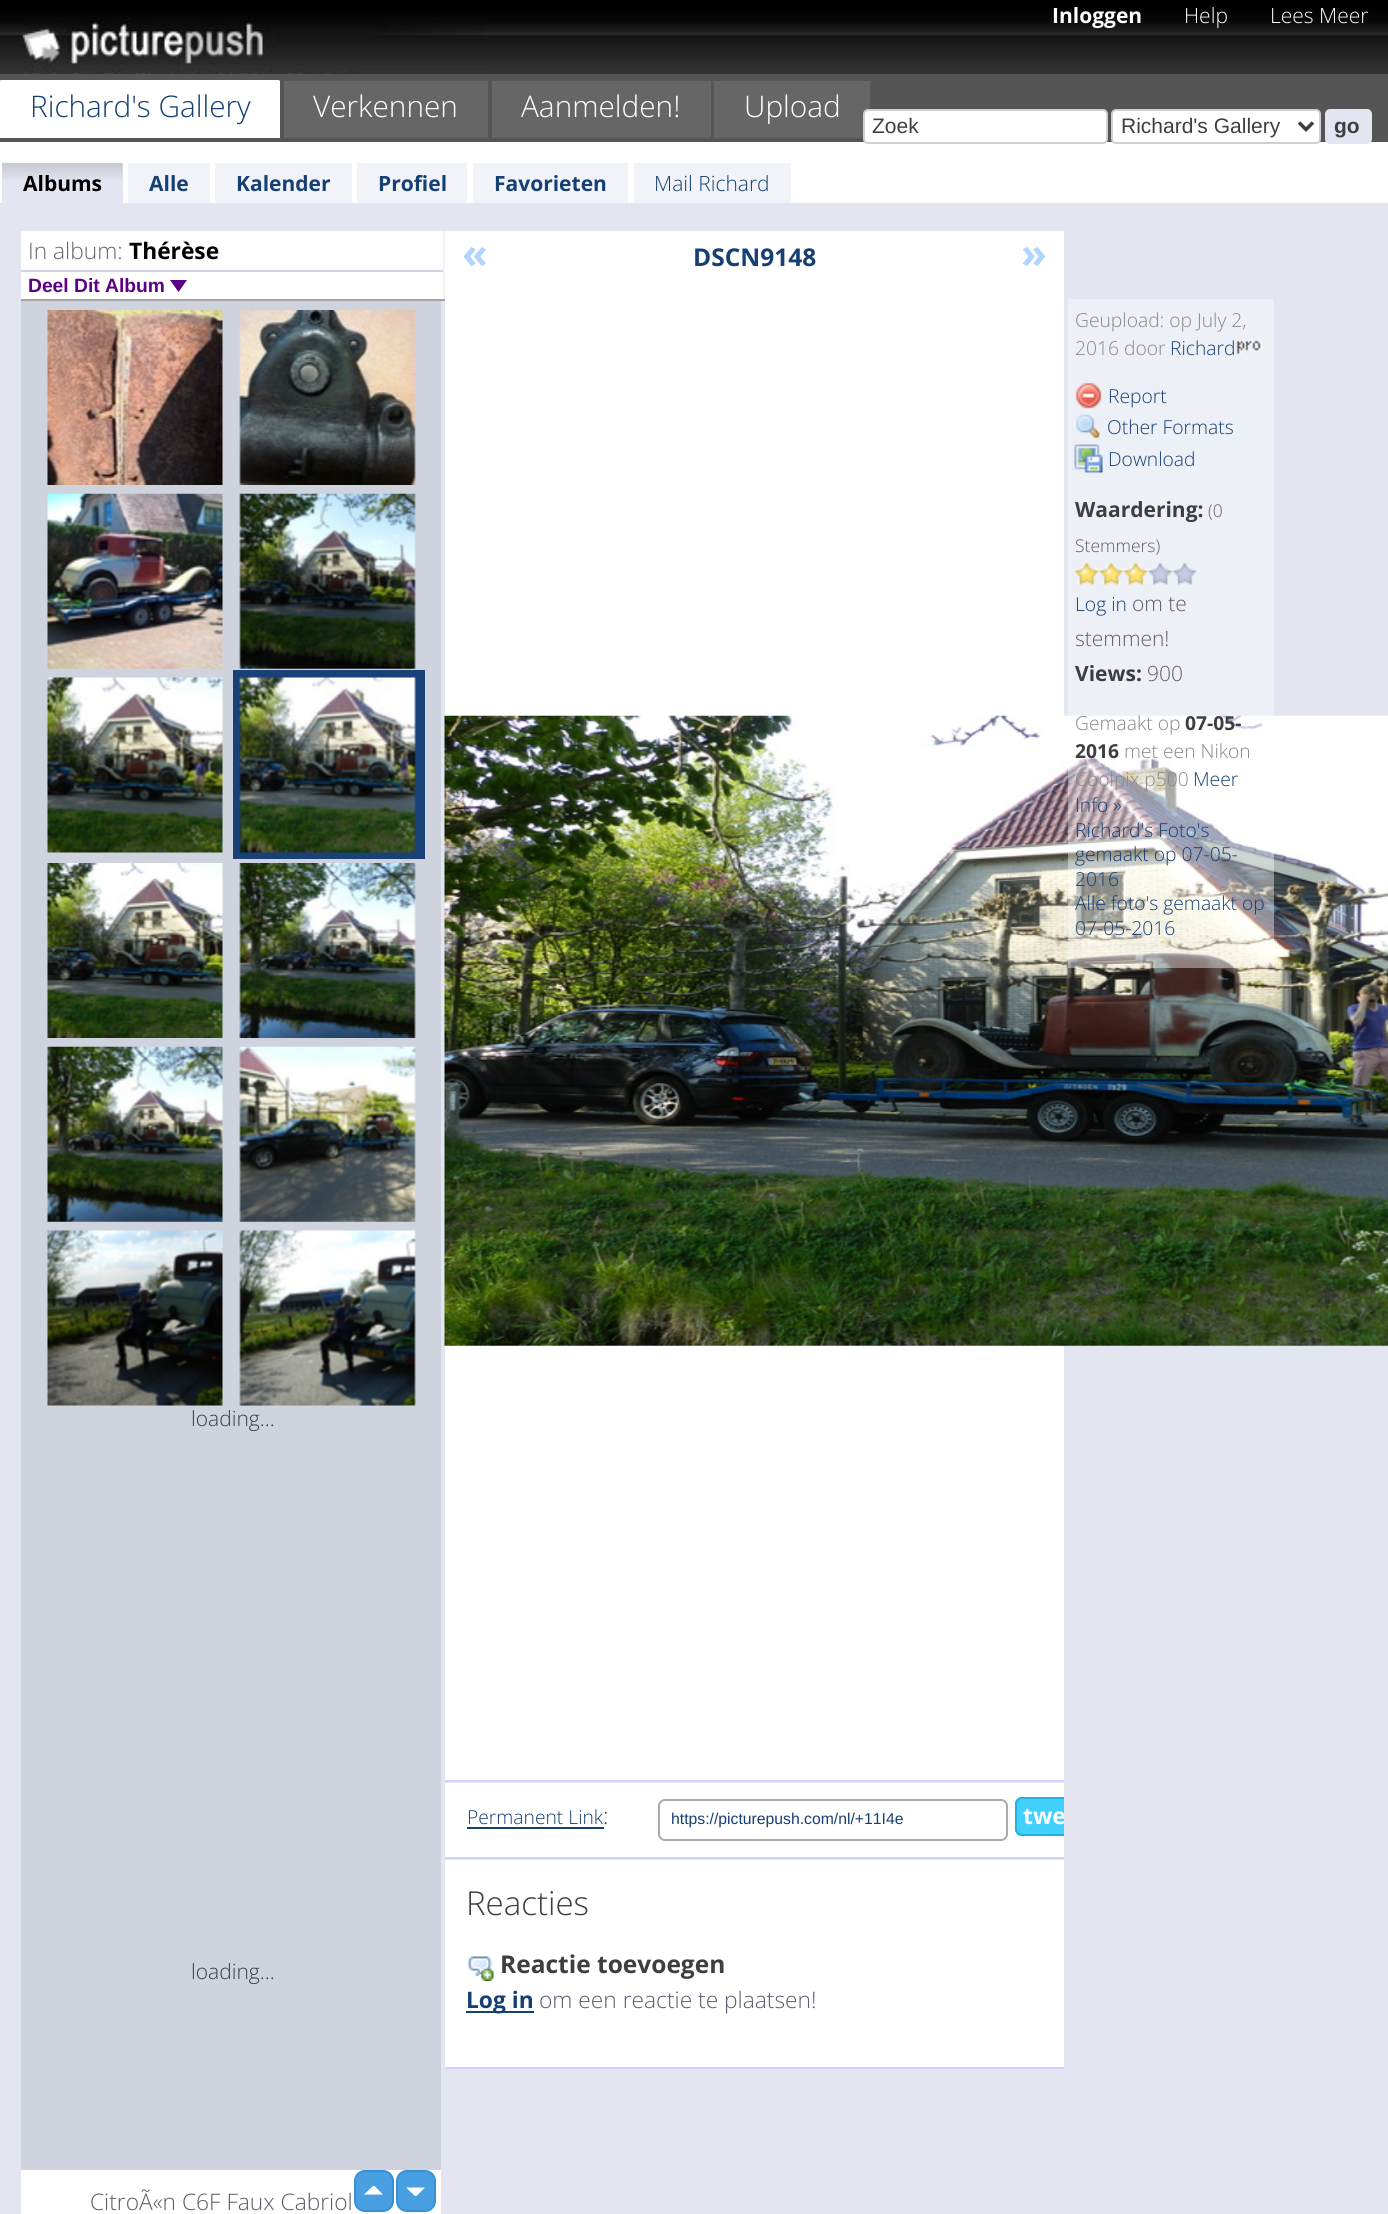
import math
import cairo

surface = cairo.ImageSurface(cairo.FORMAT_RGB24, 1388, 2214)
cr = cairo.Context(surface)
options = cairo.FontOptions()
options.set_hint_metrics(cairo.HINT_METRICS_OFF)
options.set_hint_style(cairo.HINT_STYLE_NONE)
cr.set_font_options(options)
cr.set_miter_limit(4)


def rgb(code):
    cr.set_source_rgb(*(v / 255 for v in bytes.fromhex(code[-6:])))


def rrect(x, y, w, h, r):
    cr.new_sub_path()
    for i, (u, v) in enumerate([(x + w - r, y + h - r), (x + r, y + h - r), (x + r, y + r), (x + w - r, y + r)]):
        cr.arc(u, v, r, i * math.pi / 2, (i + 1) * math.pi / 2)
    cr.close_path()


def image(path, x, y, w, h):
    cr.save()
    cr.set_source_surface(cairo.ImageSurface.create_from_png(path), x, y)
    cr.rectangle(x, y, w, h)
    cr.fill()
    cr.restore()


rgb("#e3e6f1")
cr.paint()
image("img/1.png", 0, 0, 1388, 74)
image("img/2.png", 22, 17, 463, 57)
rgb("#555555")
cr.rectangle(0, 74, 1388, 68)
cr.fill()
rgb("#ffffff")
cr.rectangle(0, 81, 280, 57)
cr.fill()
cr.new_path()
cr.move_to(0, 80)
cr.line_to(280, 80)
cr.line_to(278, 82)
cr.line_to(2, 82)
cr.close_path()
cr.fill()
cr.new_path()
cr.move_to(0, 138)
cr.line_to(0, 80)
cr.line_to(2, 82)
cr.line_to(2, 136)
cr.close_path()
cr.fill()
for x, y, w, h, color in [
    (284, 81, 204, 57, "#666666"),
    (492, 81, 219, 57, "#666666"),
    (714, 81, 156, 57, "#666666"),
    (0, 142, 1388, 61, "#ffffff"),
]:
    rgb(color)
    cr.rectangle(x, y, w, h)
    cr.fill()
rrect(864, 110, 243, 33, 4)
cr.fill_preserve()
rgb("#d0d0d0")
cr.stroke()
rgb("#ffffff")
rrect(1112, 110, 208, 33, 4)
cr.fill_preserve()
rgb("#d0d0d0")
cr.stroke()
cr.new_path()
cr.move_to(1299, 122.5)
cr.line_to(1306, 129.5)
cr.line_to(1313, 122.5)
rgb("#3e3e3e")
cr.set_line_width(3.5)
cr.stroke()
rgb("#e3e6f1")
rrect(1326, 110, 45, 33, 4)
cr.fill_preserve()
cr.set_line_width(2)
cr.stroke()
cr.rectangle(2, 163, 121, 40)
cr.fill()
image("img/3.png", 1, 162, 122, 18)
for x, y, w, h, color in [
    (128, 163, 82, 40, "#f1f3f9"),
    (215, 163, 137, 40, "#f1f3f9"),
    (357, 163, 110, 40, "#f1f3f9"),
    (473, 163, 155, 40, "#f1f3f9"),
    (634, 163, 157, 40, "#f1f3f9"),
    (21, 231, 422, 68, "#ffffff"),
    (443, 231, 2, 70, "#f3f3f3"),
    (21, 299, 424, 2, "#a4a4a4"),
    (21, 270, 422, 2, "#d0d0e0"),
]:
    rgb(color)
    cr.rectangle(x, y, w, h)
    cr.fill()
rgb("#5e0085")
cr.new_path()
cr.move_to(170, 280)
cr.line_to(187, 280)
cr.line_to(178.5, 292)
cr.close_path()
cr.fill()
rgb("#cfd3dd")
cr.rectangle(21, 301, 420, 1869)
cr.fill()
image("img/4.png", 47, 310, 176, 175)
image("img/5.png", 239, 310, 177, 175)
image("img/6.png", 47, 493, 176, 176)
image("img/7.png", 239, 493, 177, 176)
image("img/8.png", 47, 677, 176, 176)
rgb("#194077")
cr.rectangle(233, 670, 192, 189)
cr.fill()
image("img/9.png", 239, 677, 177, 176)
image("img/10.png", 47, 863, 176, 175)
image("img/11.png", 239, 863, 177, 175)
image("img/12.png", 47, 1046, 176, 176)
image("img/13.png", 239, 1046, 177, 176)
image("img/14.png", 47, 1230, 176, 176)
image("img/15.png", 239, 1230, 177, 176)
rgb("#ffffff")
cr.rectangle(21, 2170, 420, 44)
cr.fill()
rgb("#48a0e3")
rrect(355, 2171, 38, 40, 10)
cr.fill_preserve()
rgb("#3890d3")
cr.stroke()
rgb("#48a0e3")
rrect(397, 2171, 38, 40, 10)
cr.fill_preserve()
rgb("#3890d3")
cr.stroke()
rgb("#ffffff")
cr.new_path()
cr.move_to(383, 2194.5)
cr.line_to(364, 2194.5)
cr.line_to(373, 2186)
cr.line_to(374.5, 2186)
cr.close_path()
cr.move_to(406, 2187.5)
cr.line_to(425, 2187.5)
cr.line_to(416.5, 2196)
cr.line_to(415, 2196)
cr.close_path()
cr.fill()
cr.rectangle(445, 231, 619, 1549)
cr.fill()
rgb("#cfd4ff")
cr.rectangle(445, 1780, 619, 2)
cr.fill()
image("img/25.png", 444, 715, 944, 631)
cr.set_source_rgba(1, 1, 1, 0.4)
cr.rectangle(1068, 299, 206, 669)
cr.fill()
image("img/16.png", 1236, 340, 26, 14)
image("img/17.png", 1075, 382, 27, 27)
image("img/18.png", 1075, 414, 25, 26)
image("img/19.png", 1074, 444, 29, 29)
image("img/20.png", 1074, 561, 25, 24)
image("img/21.png", 1099, 561, 25, 24)
image("img/22.png", 1123, 561, 25, 24)
image("img/23.png", 1148, 562, 25, 23)
image("img/24.png", 1172, 562, 25, 23)
for x, y, w, h, color in [
    (445, 1783, 619, 74, "#ffffff"),
    (445, 1857, 619, 2, "#cfd4ff"),
    (467, 1827, 137, 2, "#163f73"),
]:
    rgb(color)
    cr.rectangle(x, y, w, h)
    cr.fill()
rrect(659, 1800, 348, 40, 6)
rgb("#aaaaaa")
cr.stroke()
rgb("#42d0ff")
cr.new_path()
cr.move_to(1022, 1797)
cr.line_to(1064, 1797)
cr.line_to(1064, 1836)
cr.line_to(1022, 1836)
cr.curve_to(1018, 1836, 1015, 1833, 1015, 1829)
cr.line_to(1015, 1804)
cr.curve_to(1015, 1800, 1018, 1797, 1022, 1797)
cr.close_path()
cr.fill()
cr.save()
cr.rectangle(445, 1783, 619, 74)
cr.clip()
rrect(1016, 1798, 129, 37, 6)
rgb("#22b0df")
cr.stroke()
cr.restore()
rgb("#ffffff")
cr.rectangle(445, 1860, 619, 207)
cr.fill()
rgb("#cfd4ff")
cr.rectangle(445, 2067, 619, 2)
cr.fill()
image("img/26.png", 467, 1956, 27, 25)
rgb("#163f73")
cr.rectangle(466, 2011, 68, 2)
cr.fill()
cr.select_font_face("Open Sans", cairo.FONT_SLANT_NORMAL, cairo.FONT_WEIGHT_BOLD)
cr.set_font_size(21)
rgb("#ffffff")
cr.move_to(1052, 23)
cr.show_text("Inloggen")
cr.select_font_face("Open Sans Light")
cr.move_to(1184, 23)
cr.show_text("Help")
cr.move_to(1270, 23)
cr.show_text("Lees Meer")
cr.set_font_size(29.75)
rgb("#163f73")
cr.move_to(30, 117)
cr.show_text("Richard's Gallery")
rgb("#ffffff")
for x, y, s in [
    (313, 117, "Verkennen"),
    (521, 117, "Aanmelden!"),
    (744, 117, "Upload"),
]:
    cr.move_to(x, y)
    cr.show_text(s)
cr.select_font_face("Liberation Sans")
cr.set_font_size(21)
rgb("#3e3e41")
cr.move_to(872, 133)
cr.show_text("Zoek")
cr.move_to(1121, 133)
cr.show_text("Richard's Gallery")
cr.select_font_face("Liberation Sans", cairo.FONT_SLANT_NORMAL, cairo.FONT_WEIGHT_BOLD)
cr.move_to(1334, 133)
cr.show_text("go")
cr.select_font_face("Open Sans", cairo.FONT_SLANT_NORMAL, cairo.FONT_WEIGHT_BOLD)
rgb("#000000")
cr.move_to(23, 191)
cr.show_text("Albums")
rgb("#163f73")
for x, y, s in [
    (149, 191, "Alle"),
    (236, 191, "Kalender"),
    (378, 191, "Profiel"),
    (494, 191, "Favorieten"),
]:
    cr.move_to(x, y)
    cr.show_text(s)
cr.select_font_face("Open Sans Light")
cr.move_to(654, 191)
cr.show_text("Mail Richard")
cr.set_font_size(22.75)
rgb("#666666")
cr.move_to(28, 259)
cr.show_text("In album:")
cr.select_font_face("Open Sans", cairo.FONT_SLANT_NORMAL, cairo.FONT_WEIGHT_BOLD)
rgb("#000000")
cr.move_to(129, 259)
cr.show_text("Thérèse")
cr.select_font_face("Liberation Sans", cairo.FONT_SLANT_NORMAL, cairo.FONT_WEIGHT_BOLD)
cr.set_font_size(19.25)
rgb("#5e0085")
cr.move_to(28, 292)
cr.show_text("Deel Dit Album")
cr.select_font_face("Open Sans Light")
cr.set_font_size(21)
rgb("#3e3e41")
cr.move_to(191, 1426)
cr.show_text("loading...")
cr.move_to(191, 1979)
cr.show_text("loading...")
cr.set_font_size(22.75)
rgb("#5a5c6c")
cr.move_to(90, 2210)
cr.show_text("CitroÃ«n C6F Faux Cabriol")
cr.select_font_face("Open Sans", cairo.FONT_SLANT_NORMAL, cairo.FONT_WEIGHT_BOLD)
cr.set_font_size(42)
rgb("#b0d4fe")
cr.move_to(462, 268)
cr.show_text("«")
cr.set_font_size(24.5)
rgb("#163f73")
cr.move_to(693, 266)
cr.show_text("DSCN9148")
cr.set_font_size(42)
rgb("#b0d4fe")
cr.move_to(1021, 268)
cr.show_text("»")
cr.select_font_face("Open Sans Light")
cr.set_font_size(19.25)
rgb("#888888")
cr.move_to(1075, 327)
cr.show_text("Geupload: op July 2,")
cr.move_to(1075, 355)
cr.show_text("2016 door")
rgb("#163f73")
for x, y, s in [
    (1170, 355, "Richard"),
    (1108, 403, "Report"),
    (1107, 434, "Other Formats"),
    (1108, 466, "Download"),
]:
    cr.move_to(x, y)
    cr.show_text(s)
cr.select_font_face("Open Sans", cairo.FONT_SLANT_NORMAL, cairo.FONT_WEIGHT_BOLD)
cr.set_font_size(21)
rgb("#3e3e41")
cr.move_to(1075, 517)
cr.show_text("Waardering:")
cr.select_font_face("Open Sans Light")
cr.set_font_size(17.5)
rgb("#5a5c6c")
cr.move_to(1208, 517)
cr.show_text("(0")
cr.move_to(1075, 552)
cr.show_text("Stemmers)")
cr.set_font_size(19.25)
rgb("#163f73")
cr.move_to(1075, 611)
cr.show_text("Log in")
cr.set_font_size(21)
rgb("#5a5c6c")
cr.move_to(1132, 611)
cr.show_text("om te")
cr.move_to(1075, 646)
cr.show_text("stemmen!")
cr.select_font_face("Open Sans", cairo.FONT_SLANT_NORMAL, cairo.FONT_WEIGHT_BOLD)
rgb("#3e3e41")
cr.move_to(1075, 681)
cr.show_text("Views:")
cr.select_font_face("Open Sans Light")
rgb("#5a5c6c")
cr.move_to(1147, 681)
cr.show_text("900")
cr.set_font_size(19.25)
rgb("#888888")
cr.move_to(1075, 730)
cr.show_text("Gemaakt op")
cr.select_font_face("Open Sans", cairo.FONT_SLANT_NORMAL, cairo.FONT_WEIGHT_BOLD)
rgb("#3e3e41")
cr.move_to(1185, 730)
cr.show_text("07-05-")
cr.move_to(1075, 758)
cr.show_text("2016")
cr.select_font_face("Open Sans Light")
rgb("#888888")
cr.move_to(1124, 758)
cr.show_text("met een Nikon")
cr.move_to(1075, 786)
cr.show_text("Coolpix p500")
rgb("#163f73")
for x, y, s in [
    (1193, 786, "Meer"),
    (1075, 812, "Info »"),
    (1075, 837, "Richard's Foto's"),
    (1075, 861, "gemaakt op 07-05-"),
    (1075, 886, "2016"),
    (1075, 910, "Alle foto's gemaakt op"),
    (1075, 935, "07-05-2016"),
    (467, 1824, "Permanent Link"),
]:
    cr.move_to(x, y)
    cr.show_text(s)
cr.set_font_size(22.75)
rgb("#3e3e41")
cr.move_to(603, 1824)
cr.show_text(":")
cr.select_font_face("Liberation Sans")
cr.set_font_size(15.75)
rgb("#163f73")
cr.move_to(671, 1824)
cr.show_text("https://picturepush.com/nl/+11I4e")
cr.save()
cr.rectangle(445, 1783, 619, 74)
cr.clip()
cr.select_font_face("Open Sans", cairo.FONT_SLANT_NORMAL, cairo.FONT_WEIGHT_BOLD)
cr.set_font_size(22.75)
rgb("#ffffff")
cr.move_to(1023, 1824)
cr.show_text("twe")
cr.restore()
cr.select_font_face("Open Sans Light")
cr.set_font_size(33)
rgb("#3e3e41")
cr.move_to(466, 1915)
cr.show_text("Reacties")
cr.select_font_face("Open Sans", cairo.FONT_SLANT_NORMAL, cairo.FONT_WEIGHT_BOLD)
cr.set_font_size(24.5)
cr.move_to(500, 1973)
cr.show_text("Reactie toevoegen")
cr.set_font_size(22.75)
rgb("#163f73")
cr.move_to(466, 2008)
cr.show_text("Log in")
cr.select_font_face("Open Sans Light")
rgb("#5a5c6c")
cr.move_to(539, 2008)
cr.show_text("om een reactie te plaatsen!")
surface.write_to_png("page.png")
